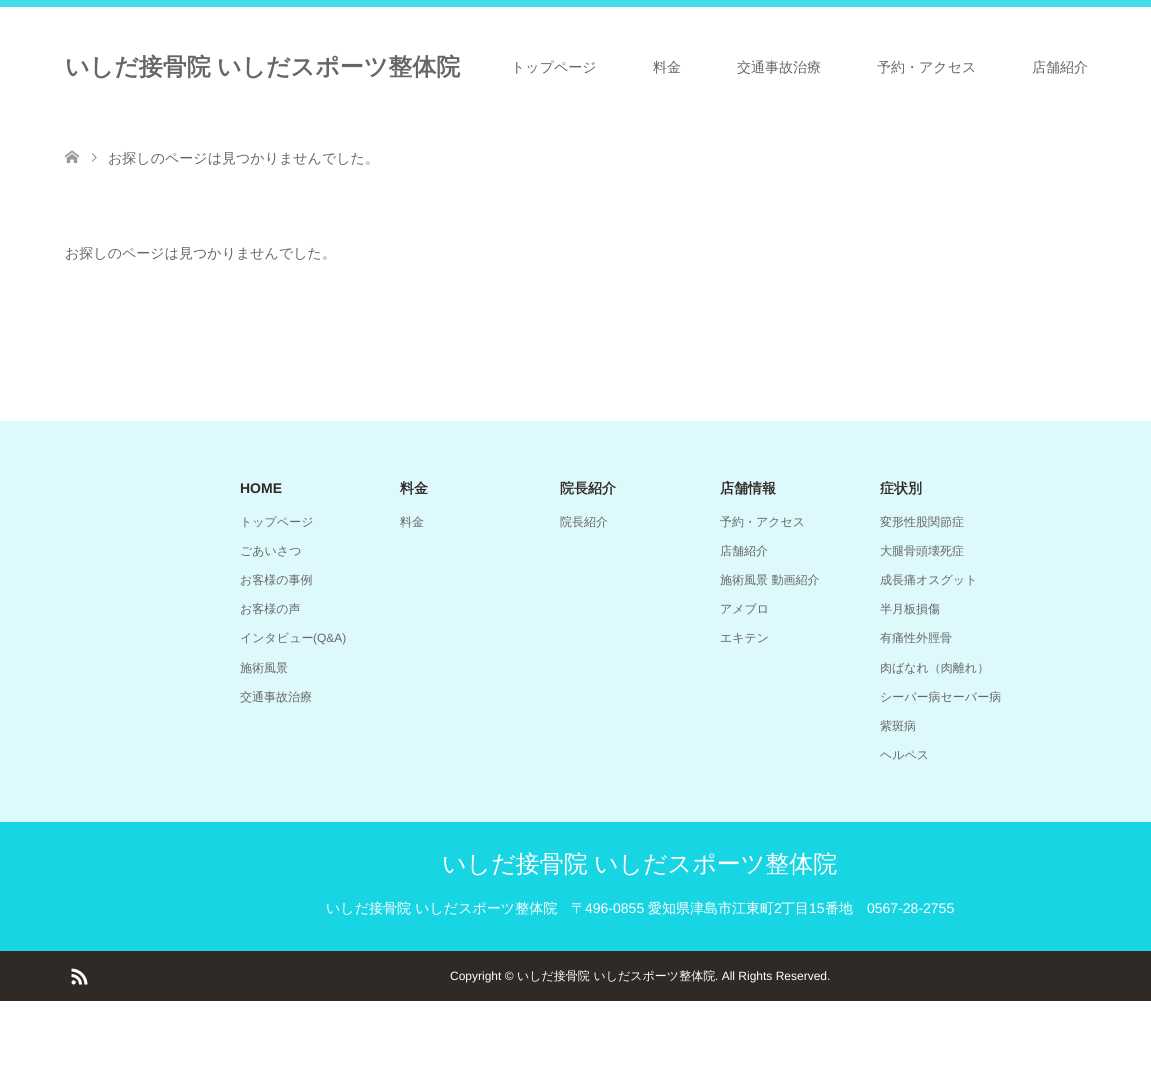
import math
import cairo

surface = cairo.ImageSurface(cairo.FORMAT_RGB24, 1151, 1086)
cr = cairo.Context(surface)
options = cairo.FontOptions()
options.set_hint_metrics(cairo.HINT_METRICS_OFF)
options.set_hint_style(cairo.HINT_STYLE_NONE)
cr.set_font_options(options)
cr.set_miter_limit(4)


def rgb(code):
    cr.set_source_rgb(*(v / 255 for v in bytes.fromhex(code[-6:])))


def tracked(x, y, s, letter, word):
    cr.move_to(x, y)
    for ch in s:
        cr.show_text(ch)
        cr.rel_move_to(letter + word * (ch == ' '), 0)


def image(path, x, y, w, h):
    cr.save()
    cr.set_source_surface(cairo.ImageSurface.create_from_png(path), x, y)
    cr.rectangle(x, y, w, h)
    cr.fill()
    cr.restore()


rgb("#ffffff")
cr.paint()
rgb("#45dde9")
cr.rectangle(0, 0, 1151, 7)
cr.fill()
image("img/1.png", 65, 150, 14, 13)
image("img/2.png", 92, 153, 5, 9)
for x, y, w, h, color in [
    (0, 421, 1151, 401, "#ddf9fc"),
    (0, 822, 1151, 129, "#17d5e3"),
    (0, 951, 1151, 50, "#302a26"),
]:
    rgb(color)
    cr.rectangle(x, y, w, h)
    cr.fill()
image("img/3.png", 71, 968, 17, 17)
cr.select_font_face("WenQuanYi Zen Hei", cairo.FONT_SLANT_NORMAL, cairo.FONT_WEIGHT_BOLD)
cr.set_font_size(24)
rgb("#666666")
tracked(65, 75, "いしだ接骨院 いしだスポーツ整体院", 0, -1)
cr.select_font_face("WenQuanYi Zen Hei Medium")
cr.set_font_size(14)
for x, y, s in [
    (511, 72, "トップページ"),
    (653, 72, "料金"),
    (737, 72, "交通事故治療"),
    (877, 72, "予約・アクセス"),
    (1032, 72, "店舗紹介"),
    (108, 163, "お探しのページは見つかりませんでした。"),
    (65, 258, "お探しのページは見つかりませんでした。"),
]:
    cr.move_to(x, y)
    cr.show_text(s)
cr.select_font_face("Liberation Sans", cairo.FONT_SLANT_NORMAL, cairo.FONT_WEIGHT_BOLD)
rgb("#302a26")
cr.move_to(240, 493)
cr.show_text("HOME")
cr.select_font_face("WenQuanYi Zen Hei Medium")
cr.set_font_size(12)
rgb("#666666")
for x, y, s in [
    (240, 526, "トップページ"),
    (240, 555, "ごあいさつ"),
    (240, 584, "お客様の事例"),
    (240, 613, "お客様の声"),
    (240, 642, "インタビュー"),
]:
    cr.move_to(x, y)
    cr.show_text(s)
cr.select_font_face("Liberation Sans")
cr.move_to(313, 642)
cr.show_text("(Q&A)")
cr.select_font_face("WenQuanYi Zen Hei Medium")
cr.move_to(240, 672)
cr.show_text("施術風景")
cr.move_to(240, 701)
cr.show_text("交通事故治療")
cr.select_font_face("WenQuanYi Zen Hei", cairo.FONT_SLANT_NORMAL, cairo.FONT_WEIGHT_BOLD)
cr.set_font_size(14)
rgb("#302a26")
cr.move_to(400, 493)
cr.show_text("料金")
cr.select_font_face("WenQuanYi Zen Hei Medium")
cr.set_font_size(12)
rgb("#666666")
cr.move_to(400, 526)
cr.show_text("料金")
cr.select_font_face("WenQuanYi Zen Hei", cairo.FONT_SLANT_NORMAL, cairo.FONT_WEIGHT_BOLD)
cr.set_font_size(14)
rgb("#302a26")
cr.move_to(560, 493)
cr.show_text("院長紹介")
cr.select_font_face("WenQuanYi Zen Hei Medium")
cr.set_font_size(12)
rgb("#666666")
cr.move_to(560, 526)
cr.show_text("院長紹介")
cr.select_font_face("WenQuanYi Zen Hei", cairo.FONT_SLANT_NORMAL, cairo.FONT_WEIGHT_BOLD)
cr.set_font_size(14)
rgb("#302a26")
cr.move_to(720, 493)
cr.show_text("店舗情報")
cr.select_font_face("WenQuanYi Zen Hei Medium")
cr.set_font_size(12)
rgb("#666666")
for x, y, s in [
    (720, 526, "予約・アクセス"),
    (720, 555, "店舗紹介"),
    (720, 584, "施術風景 動画紹介"),
    (720, 613, "アメブロ"),
    (720, 642, "エキテン"),
]:
    cr.move_to(x, y)
    cr.show_text(s)
cr.select_font_face("WenQuanYi Zen Hei", cairo.FONT_SLANT_NORMAL, cairo.FONT_WEIGHT_BOLD)
cr.set_font_size(14)
rgb("#302a26")
cr.move_to(880, 493)
cr.show_text("症状別")
cr.select_font_face("WenQuanYi Zen Hei Medium")
cr.set_font_size(12)
rgb("#666666")
for x, y, s in [
    (880, 526, "変形性股関節症"),
    (880, 555, "大腿骨頭壊死症"),
    (880, 584, "成長痛オスグット"),
    (880, 613, "半月板損傷"),
    (880, 642, "有痛性外脛骨"),
    (880, 672, "肉ばなれ（肉離れ）"),
    (880, 701, "シーバー病セーバー病"),
    (880, 730, "紫斑病"),
    (880, 759, "ヘルペス"),
]:
    cr.move_to(x, y)
    cr.show_text(s)
cr.set_font_size(24)
rgb("#ffffff")
tracked(442, 872, "いしだ接骨院 いしだスポーツ整体院", 0, -1)
cr.set_font_size(14)
cr.move_to(326, 913)
cr.show_text("いしだ接骨院 いしだスポーツ整体院")
cr.move_to(571, 913)
cr.show_text("〒")
cr.select_font_face("Liberation Sans")
cr.move_to(585, 913)
cr.show_text("496-0855")
cr.select_font_face("WenQuanYi Zen Hei Medium")
cr.move_to(648, 913)
cr.show_text("愛知県津島市江東町")
cr.select_font_face("Liberation Sans")
cr.move_to(774, 913)
cr.show_text("2")
cr.select_font_face("WenQuanYi Zen Hei Medium")
cr.move_to(781, 913)
cr.show_text("丁目")
cr.select_font_face("Liberation Sans")
cr.move_to(809, 913)
cr.show_text("15")
cr.select_font_face("WenQuanYi Zen Hei Medium")
cr.move_to(825, 913)
cr.show_text("番地")
cr.select_font_face("Liberation Sans")
cr.move_to(867, 913)
cr.show_text("0567-28-2755")
cr.set_font_size(12)
cr.move_to(450, 980)
cr.show_text("Copyright ©")
cr.select_font_face("WenQuanYi Zen Hei Medium")
cr.move_to(517, 980)
cr.show_text("いしだ接骨院 いしだスポーツ整体院")
cr.select_font_face("Liberation Sans")
cr.move_to(715, 980)
cr.show_text(". All Rights Reserved.")
surface.write_to_png("page.png")
